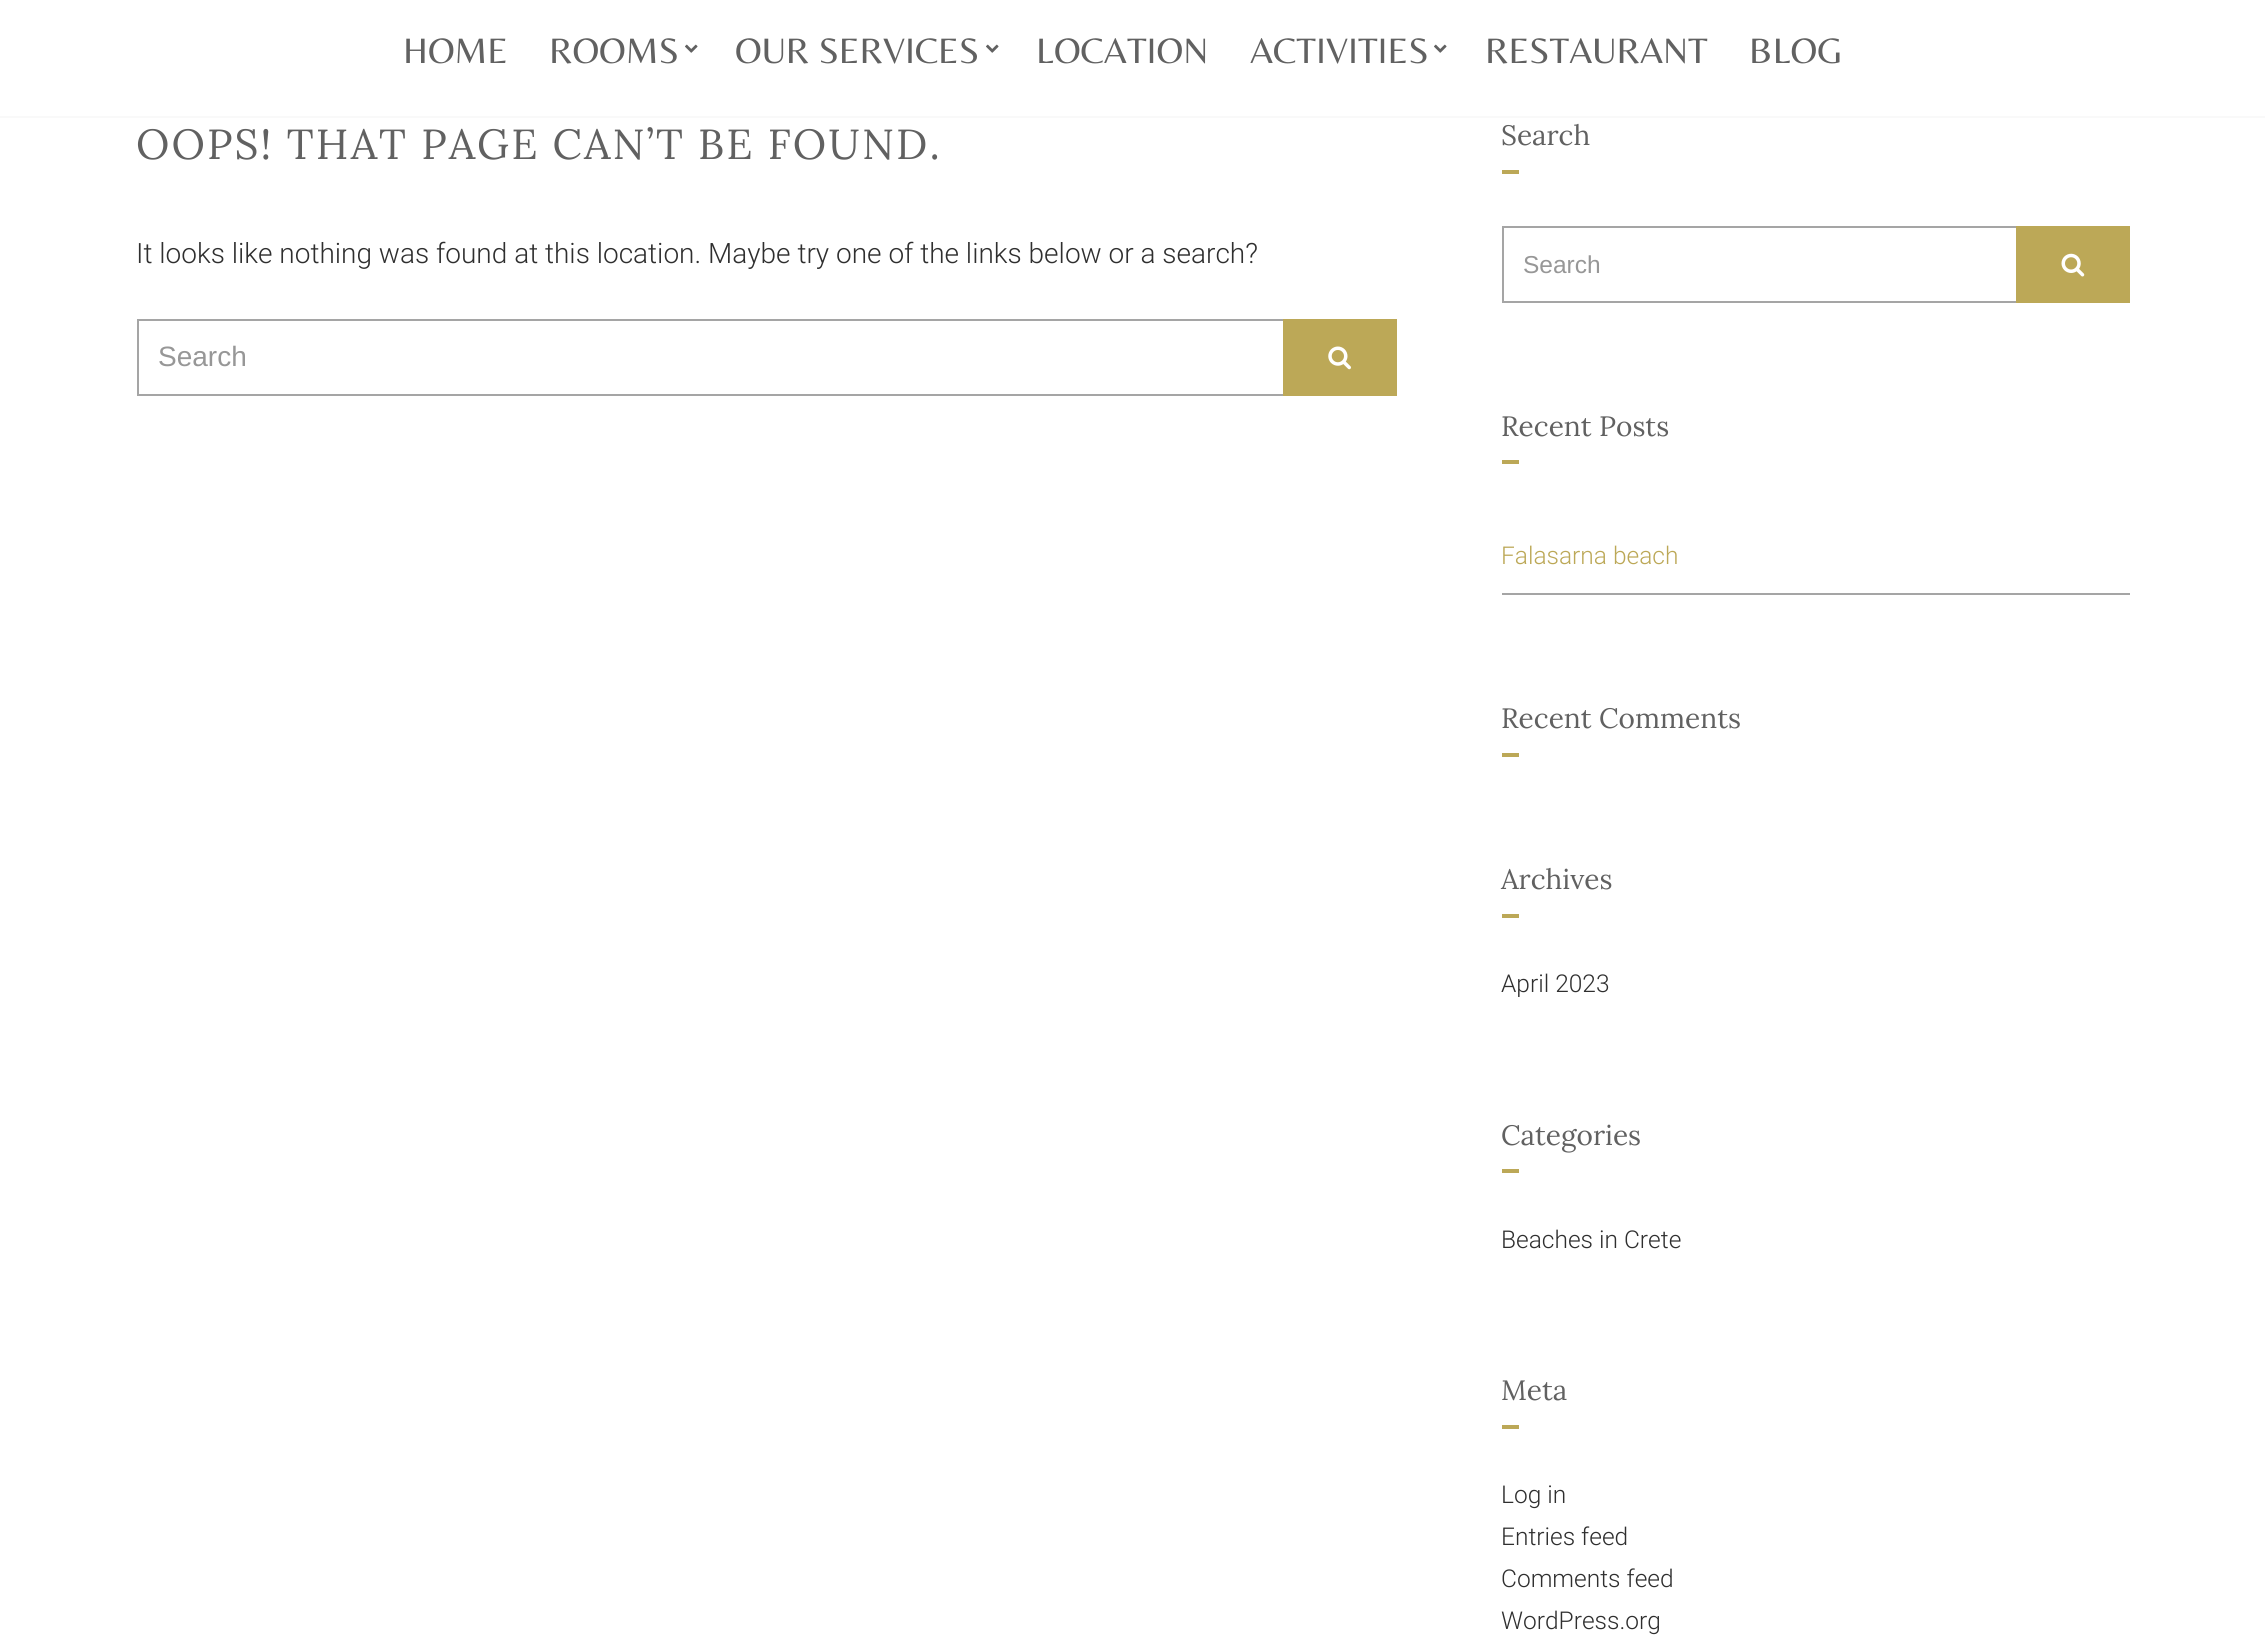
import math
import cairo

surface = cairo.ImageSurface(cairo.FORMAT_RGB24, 2265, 1635)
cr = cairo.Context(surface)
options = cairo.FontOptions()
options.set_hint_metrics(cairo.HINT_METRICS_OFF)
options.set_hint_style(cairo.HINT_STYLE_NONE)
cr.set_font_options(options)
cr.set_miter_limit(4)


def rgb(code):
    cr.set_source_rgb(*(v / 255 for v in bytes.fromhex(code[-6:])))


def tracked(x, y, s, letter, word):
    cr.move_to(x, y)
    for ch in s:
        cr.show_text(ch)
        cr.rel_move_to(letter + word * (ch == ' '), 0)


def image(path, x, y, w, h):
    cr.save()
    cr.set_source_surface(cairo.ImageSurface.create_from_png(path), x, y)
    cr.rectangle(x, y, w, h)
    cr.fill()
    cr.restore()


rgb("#ffffff")
cr.paint()
rgb("#f9f9f9")
cr.rectangle(0, 116, 2265, 2)
cr.fill()
image("img/1.png", 685, 44, 13, 9)
image("img/1.png", 986, 44, 13, 9)
image("img/1.png", 1434, 44, 13, 9)
cr.rectangle(138, 320, 1258, 75)
rgb("#a5a5a5")
cr.stroke()
rgb("#bca857")
cr.rectangle(1283, 319, 114, 77)
cr.fill()
image("img/2.png", 1328, 346, 23, 24)
cr.rectangle(1502, 170, 17, 4)
cr.fill()
cr.rectangle(1503, 227, 626, 75)
rgb("#a5a5a5")
cr.stroke()
rgb("#bca857")
cr.rectangle(2016, 226, 114, 77)
cr.fill()
image("img/3.png", 2061, 253, 24, 24)
for x, y, w, h, color in [
    (1502, 460, 17, 4, "#bca857"),
    (1502, 593, 628, 2, "#a5a5a5"),
    (1502, 753, 17, 4, "#bca857"),
    (1502, 914, 17, 4, "#bca857"),
    (1502, 1169, 17, 4, "#bca857"),
    (1502, 1425, 17, 4, "#bca857"),
]:
    rgb(color)
    cr.rectangle(x, y, w, h)
    cr.fill()
cr.select_font_face("Belleza")
cr.set_font_size(36.75)
rgb("#616161")
for x, y, s in [
    (403, 63, "HOME"),
    (549, 63, "ROOMS"),
    (735, 63, "OUR SERVICES"),
    (1036, 63, "LOCATION"),
    (1250, 63, "ACTIVITIES"),
    (1485, 63, "RESTAURANT"),
    (1749, 63, "BLOG"),
]:
    cr.move_to(x, y)
    cr.show_text(s)
cr.select_font_face("Lora")
cr.set_font_size(42)
tracked(136, 159, "OOPS! THAT PAGE CAN’T BE FOUND.", 2.1, 0)
cr.select_font_face("Roboto Light")
cr.set_font_size(28)
rgb("#2f2f2f")
cr.move_to(136, 263)
cr.show_text("It looks like nothing was found at this location. Maybe try one of the links below or a search?")
cr.select_font_face("Liberation Sans")
rgb("#979797")
cr.move_to(158, 366)
cr.show_text("Search")
cr.select_font_face("Lora")
rgb("#616161")
cr.move_to(1501, 145)
cr.show_text("Search")
cr.select_font_face("Liberation Sans")
cr.set_font_size(24.5)
rgb("#979797")
cr.move_to(1523, 273)
cr.show_text("Search")
cr.select_font_face("Lora")
cr.set_font_size(28)
rgb("#616161")
cr.move_to(1501, 436)
cr.show_text("Recent Posts")
cr.select_font_face("Roboto Light")
cr.set_font_size(24.5)
rgb("#bca857")
cr.move_to(1501, 564)
cr.show_text("Falasarna beach")
cr.select_font_face("Lora")
cr.set_font_size(28)
rgb("#616161")
cr.move_to(1501, 728)
cr.show_text("Recent Comments")
cr.move_to(1501, 889)
cr.show_text("Archives")
cr.select_font_face("Roboto Light")
cr.set_font_size(24.5)
rgb("#2f2f2f")
cr.move_to(1501, 992)
cr.show_text("April 2023")
cr.select_font_face("Lora")
cr.set_font_size(28)
rgb("#616161")
cr.move_to(1501, 1145)
cr.show_text("Categories")
cr.select_font_face("Roboto Light")
cr.set_font_size(24.5)
rgb("#2f2f2f")
cr.move_to(1501, 1248)
cr.show_text("Beaches in Crete")
cr.select_font_face("Lora")
cr.set_font_size(28)
rgb("#616161")
cr.move_to(1501, 1400)
cr.show_text("Meta")
cr.select_font_face("Roboto Light")
cr.set_font_size(24.5)
rgb("#2f2f2f")
for x, y, s in [
    (1501, 1503, "Log in"),
    (1501, 1545, "Entries feed"),
    (1501, 1587, "Comments feed"),
    (1501, 1629, "WordPress.org"),
]:
    cr.move_to(x, y)
    cr.show_text(s)
surface.write_to_png("page.png")
